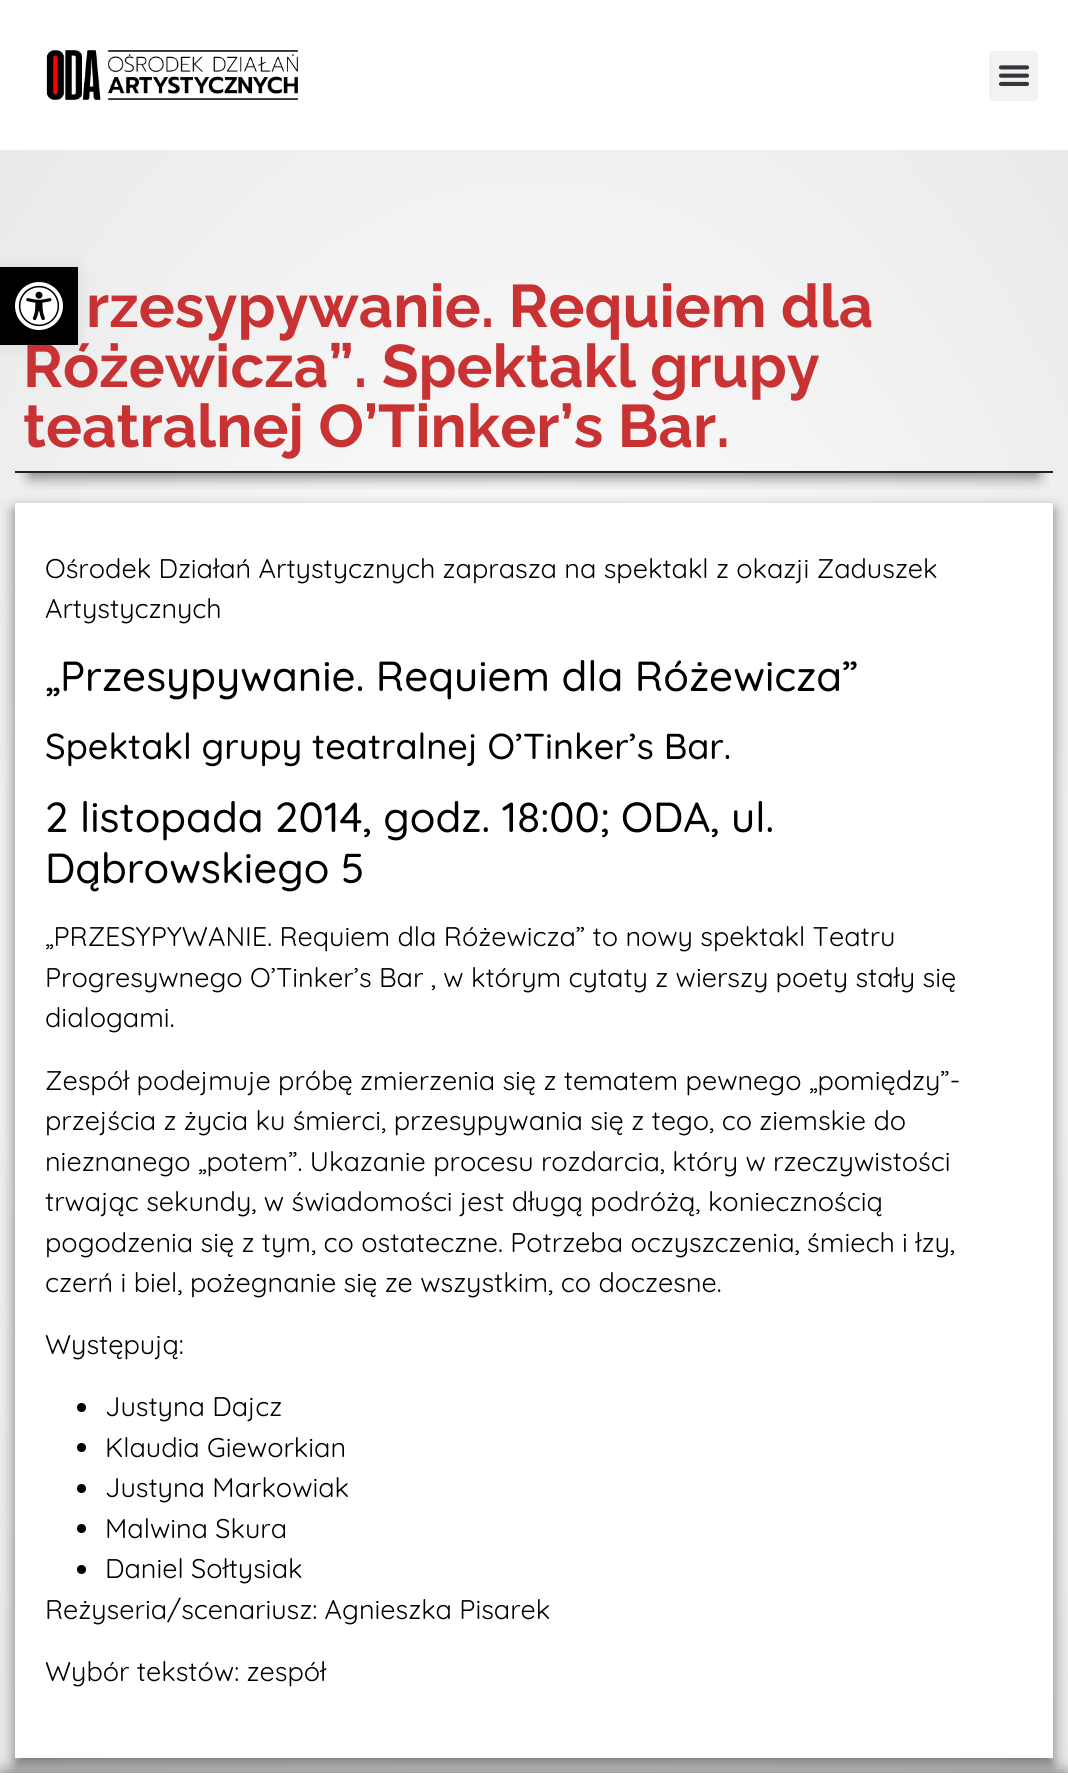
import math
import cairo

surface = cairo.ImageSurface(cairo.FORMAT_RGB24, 1068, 1775)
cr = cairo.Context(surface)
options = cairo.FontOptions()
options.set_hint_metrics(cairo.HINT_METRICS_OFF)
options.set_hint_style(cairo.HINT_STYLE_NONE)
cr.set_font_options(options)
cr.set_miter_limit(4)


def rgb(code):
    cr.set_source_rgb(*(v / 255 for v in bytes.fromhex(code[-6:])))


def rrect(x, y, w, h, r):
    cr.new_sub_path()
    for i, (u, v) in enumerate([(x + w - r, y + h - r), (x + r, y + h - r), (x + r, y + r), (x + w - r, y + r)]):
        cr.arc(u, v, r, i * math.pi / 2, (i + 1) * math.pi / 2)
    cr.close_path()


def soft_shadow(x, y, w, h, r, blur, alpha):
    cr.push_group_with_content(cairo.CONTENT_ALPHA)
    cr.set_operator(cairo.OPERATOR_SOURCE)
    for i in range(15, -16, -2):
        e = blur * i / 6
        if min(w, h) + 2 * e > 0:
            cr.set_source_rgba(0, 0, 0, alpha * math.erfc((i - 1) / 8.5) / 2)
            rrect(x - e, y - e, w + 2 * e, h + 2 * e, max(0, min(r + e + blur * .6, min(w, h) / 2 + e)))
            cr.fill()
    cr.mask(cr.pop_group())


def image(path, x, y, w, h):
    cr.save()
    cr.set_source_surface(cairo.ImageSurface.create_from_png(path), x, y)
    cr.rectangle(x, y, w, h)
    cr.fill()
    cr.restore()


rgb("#ffffff")
cr.paint()
image("img/1.png", 46, 50, 252, 50)
rgb("#f2f2f2")
rrect(989, 51, 49, 50, 5)
cr.fill()
image("img/2.png", 998, 65, 32, 21)
gradient = cairo.RadialGradient(0, 0, 0, 0, 0, 1)
gradient.set_matrix(cairo.Matrix(1 / 755, 0, 0, 1 / 1148, -1 * 534 / 755, -1 * 962 / 1148))
gradient.add_color_stop_rgba(0.1, 1, 1, 1, 1)
gradient.add_color_stop_rgba(1, 0.918, 0.918, 0.918, 1)
cr.set_source(gradient)
cr.rectangle(0, 150, 1068, 1623)
cr.fill()
rgb("#000000")
soft_shadow(0, 267, 78, 78, 0, 7.5, 0.1)
cr.save()
cr.rectangle(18, 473, 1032, 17)
cr.clip()
soft_shadow(30, 305, 1008, 172, 0, 7.5, 0.5)
cr.restore()
rgb("#212121")
cr.rectangle(15, 471, 1038, 2)
cr.fill()
rgb("#000000")
soft_shadow(15, 510, 1038, 1256, 0, 7.5, 0.5)
rgb("#ffffff")
cr.rectangle(15, 503, 1038, 1255)
cr.fill()
rgb("#000000")
cr.arc(81.5, 1407.5, 4.5, 0, 2 * math.pi)
cr.fill()
cr.arc(81.5, 1447.5, 4.5, 0, 2 * math.pi)
cr.fill()
cr.arc(81.5, 1488.5, 4.5, 0, 2 * math.pi)
cr.fill()
cr.arc(81.5, 1528.5, 4.5, 0, 2 * math.pi)
cr.fill()
cr.arc(81.5, 1569.5, 4.5, 0, 2 * math.pi)
cr.fill()
rgb("#000000")
soft_shadow(0, 1773, 1068, 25, 0, 7.5, 0.5)
rgb("#ffffff")
cr.rectangle(0, 1773, 1068, 2)
cr.fill()
cr.select_font_face("Raleway", cairo.FONT_SLANT_NORMAL, cairo.FONT_WEIGHT_BOLD)
cr.set_font_size(60)
rgb("#c83232")
cr.move_to(86, 327)
cr.show_text("rzesypywanie. Requiem dla")
cr.move_to(23, 387)
cr.show_text("Różewicza”. Spektakl grupy")
rgb("#000000")
cr.rectangle(0, 267, 78, 78)
cr.fill()
image("img/3.png", 15, 282, 48, 48)
rgb("#c83232")
cr.move_to(23, 447)
cr.show_text("teatralnej O’Tinker’s Bar.")
cr.select_font_face("Quicksand")
cr.set_font_size(27)
rgb("#000000")
cr.move_to(45, 578)
cr.show_text("Ośrodek Działań Artystycznych zaprasza na spektakl z okazji Zaduszek")
cr.move_to(45, 618)
cr.show_text("Artystycznych")
cr.select_font_face("Quicksand Medium")
cr.set_font_size(42)
cr.move_to(45, 691)
cr.show_text("„Przesypywanie. Requiem dla Różewicza”")
cr.set_font_size(36)
cr.move_to(45, 759)
cr.show_text("Spektakl grupy teatralnej O’Tinker’s Bar.")
cr.set_font_size(42)
cr.move_to(45, 832)
cr.show_text("2 listopada 2014, godz. 18:00; ODA, ul.")
cr.move_to(45, 883)
cr.show_text("Dąbrowskiego 5")
cr.select_font_face("Quicksand")
cr.set_font_size(27)
for x, y, s in [
    (45, 946, "„PRZESYPYWANIE. Requiem dla Różewicza” to nowy spektakl Teatru"),
    (45, 987, "Progresywnego O’Tinker’s Bar , w którym cytaty z wierszy poety stały się"),
    (45, 1027, "dialogami."),
    (45, 1090, "Zespół podejmuje próbę zmierzenia się z tematem pewnego „pomiędzy”-"),
    (45, 1130, "przejścia z życia ku śmierci, przesypywania się z tego, co ziemskie do"),
    (45, 1171, "nieznanego „potem”. Ukazanie procesu rozdarcia, który w rzeczywistości"),
    (45, 1211, "trwając sekundy, w świadomości jest długą podróżą, koniecznością"),
    (45, 1252, "pogodzenia się z tym, co ostateczne. Potrzeba oczyszczenia, śmiech i łzy,"),
    (45, 1292, "czerń i biel, pożegnanie się ze wszystkim, co doczesne."),
    (45, 1354, "Występują:"),
    (105, 1416, "Justyna Dajcz"),
    (105, 1457, "Klaudia Gieworkian"),
    (105, 1497, "Justyna Markowiak"),
    (105, 1538, "Malwina Skura"),
    (105, 1578, "Daniel Sołtysiak"),
    (45, 1619, "Reżyseria/scenariusz: Agnieszka Pisarek"),
    (45, 1681, "Wybór tekstów: zespół"),
]:
    cr.move_to(x, y)
    cr.show_text(s)
surface.write_to_png("page.png")
